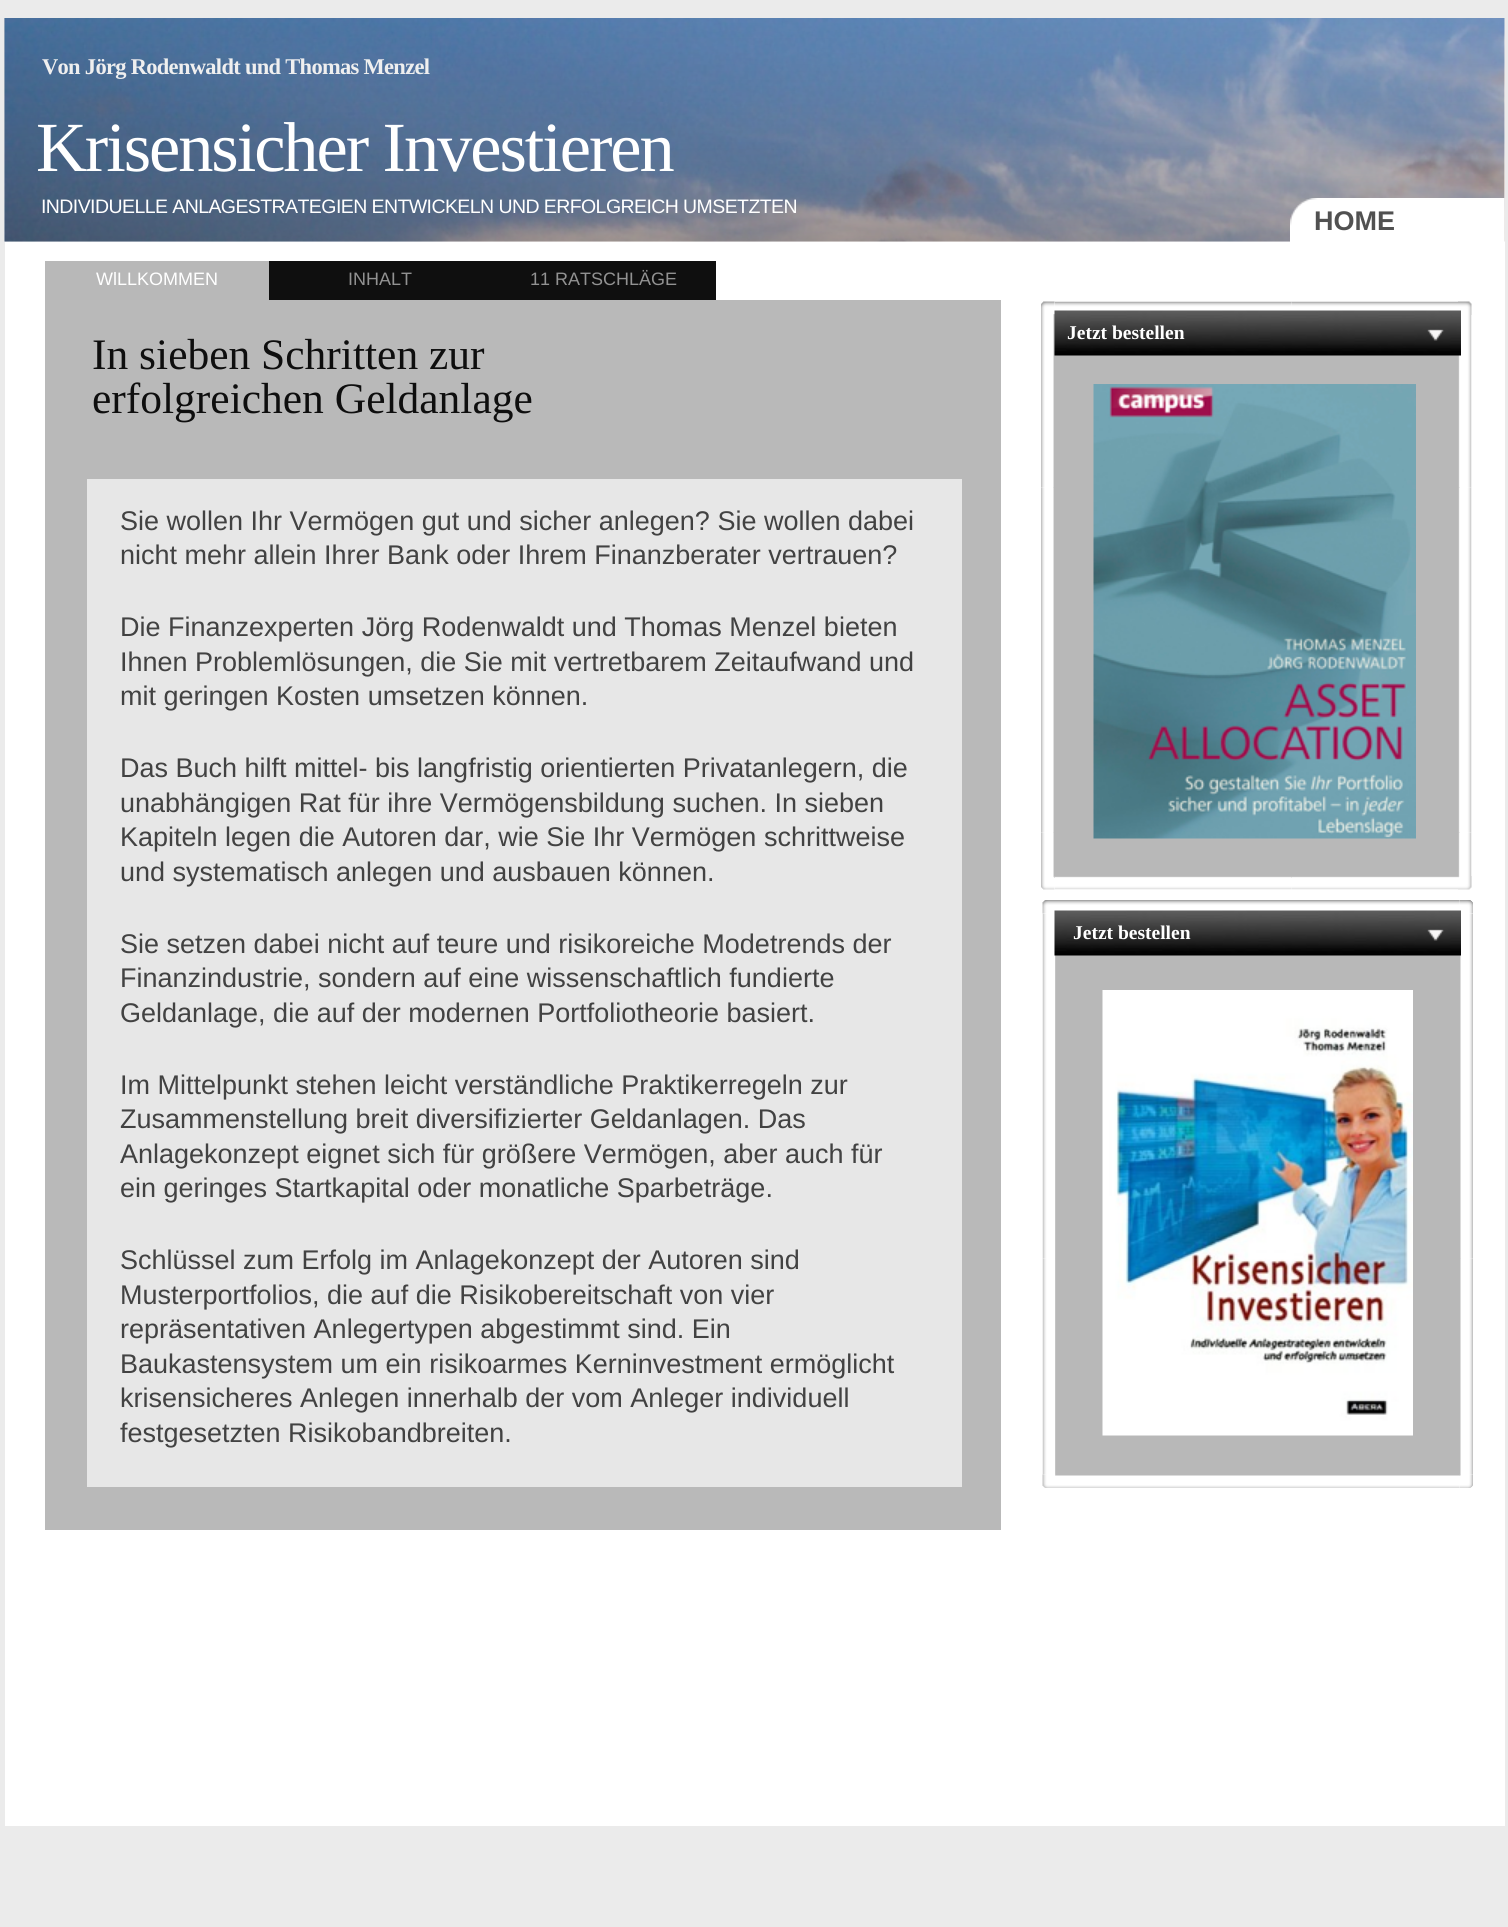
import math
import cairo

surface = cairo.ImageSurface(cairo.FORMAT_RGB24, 1508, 1927)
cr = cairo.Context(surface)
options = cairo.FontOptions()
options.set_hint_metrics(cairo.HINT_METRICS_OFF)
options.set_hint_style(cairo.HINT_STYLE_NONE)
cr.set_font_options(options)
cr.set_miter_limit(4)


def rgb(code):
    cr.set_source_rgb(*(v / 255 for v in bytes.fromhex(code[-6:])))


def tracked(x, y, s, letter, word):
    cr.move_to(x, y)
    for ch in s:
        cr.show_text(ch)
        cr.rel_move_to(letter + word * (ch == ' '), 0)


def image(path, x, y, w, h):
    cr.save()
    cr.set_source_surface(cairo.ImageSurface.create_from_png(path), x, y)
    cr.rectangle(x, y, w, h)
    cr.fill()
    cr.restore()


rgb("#ebebeb")
cr.paint()
rgb("#ffffff")
cr.rectangle(5, 18, 1500, 1808)
cr.fill()
image("img/1.png", 4, 18, 1501, 224)
image("img/2.png", 4, 18, 1501, 224)
image("img/3.png", 1290, 198, 215, 44)
for x, y, w, h, color in [
    (45, 261, 224, 39, "#b8b8b8"),
    (269, 261, 447, 39, "#0f0f0f"),
    (45, 300, 956, 1230, "#b9b9b9"),
    (1053, 314, 407, 564, "#b8b8b8"),
]:
    rgb(color)
    cr.rectangle(x, y, w, h)
    cr.fill()
image("img/4.png", 1041, 301, 14, 14)
image("img/5.png", 1054, 301, 238, 14)
image("img/6.png", 1291, 301, 167, 10)
image("img/7.png", 1458, 301, 14, 14)
image("img/8.png", 1041, 315, 13, 173)
image("img/9.png", 1041, 487, 13, 173)
image("img/8.png", 1041, 660, 13, 173)
image("img/10.png", 1041, 832, 13, 44)
image("img/11.png", 1458, 315, 14, 173)
image("img/12.png", 1458, 487, 14, 173)
image("img/11.png", 1458, 660, 14, 173)
image("img/13.png", 1458, 832, 14, 44)
image("img/14.png", 1041, 876, 14, 14)
image("img/15.png", 1054, 876, 238, 14)
image("img/16.png", 1291, 876, 167, 14)
image("img/17.png", 1458, 876, 14, 14)
image("img/18.png", 1054, 310, 407, 46)
image("img/19.png", 1427, 329, 17, 12)
image("img/20.png", 1093, 384, 323, 455)
rgb("#e7e7e7")
cr.rectangle(87, 479, 875, 1008)
cr.fill()
rgb("#b8b8b8")
cr.rectangle(1055, 955, 406, 521)
cr.fill()
image("img/21.png", 1042, 900, 14, 14)
image("img/22.png", 1056, 900, 237, 11)
image("img/24.png", 1459, 900, 14, 14)
image("img/23.png", 1293, 900, 167, 11)
image("img/25.png", 1042, 913, 14, 173)
image("img/26.png", 1042, 1086, 14, 173)
image("img/27.png", 1042, 1258, 14, 173)
image("img/33.png", 1042, 1474, 14, 14)
image("img/28.png", 1042, 1431, 14, 44)
image("img/29.png", 1460, 913, 13, 173)
image("img/30.png", 1460, 1086, 13, 173)
image("img/31.png", 1460, 1258, 13, 173)
image("img/36.png", 1459, 1474, 14, 14)
image("img/32.png", 1460, 1431, 13, 44)
image("img/34.png", 1056, 1475, 237, 13)
image("img/35.png", 1293, 1475, 167, 13)
image("img/37.png", 1054, 910, 407, 46)
image("img/19.png", 1427, 929, 17, 12)
image("img/38.png", 1102, 990, 311, 446)
cr.select_font_face("Liberation Serif", cairo.FONT_SLANT_NORMAL, cairo.FONT_WEIGHT_BOLD)
cr.set_font_size(22.5)
rgb("#efefef")
tracked(42, 74, "Von Jörg Rodenwaldt und Thomas Menzel", -0.7, 0)
cr.select_font_face("Liberation Serif")
cr.set_font_size(70.5)
rgb("#ffffff")
tracked(36, 171, "Krisensicher Investieren", -2.1, 0)
cr.select_font_face("Liberation Sans")
cr.set_font_size(19.5)
tracked(41, 213, "INDIVIDUELLE ANLAGESTRATEGIEN ENTWICKELN UND ERFOLGREICH UMSETZTEN", -0.58, 0)
cr.select_font_face("Liberation Sans", cairo.FONT_SLANT_NORMAL, cairo.FONT_WEIGHT_BOLD)
cr.set_font_size(27)
rgb("#515151")
cr.move_to(1314, 230)
cr.show_text("HOME")
cr.select_font_face("Liberation Sans")
cr.set_font_size(18)
rgb("#ffffff")
cr.move_to(96, 285)
cr.show_text("WlLLKOMMEN")
rgb("#929292")
cr.move_to(348, 285)
cr.show_text("INHALT")
cr.move_to(530, 285)
cr.show_text("11 RATSCHLÄGE")
cr.select_font_face("Liberation Serif", cairo.FONT_SLANT_NORMAL, cairo.FONT_WEIGHT_BOLD)
cr.set_font_size(19.5)
rgb("#ffffff")
cr.move_to(1067, 339)
cr.show_text("Jetzt bestellen")
cr.select_font_face("Liberation Serif")
cr.set_font_size(43.5)
rgb("#0e0e0e")
cr.move_to(92, 369)
cr.show_text("In sieben Schritten zur")
cr.move_to(92, 413)
cr.show_text("erfolgreichen Geldanlage")
cr.select_font_face("Liberation Sans")
cr.set_font_size(27)
rgb("#424242")
for x, y, s in [
    (120, 530, "Sie wollen Ihr Vermögen gut und sicher anlegen? Sie wollen dabei"),
    (120, 564, "nicht mehr allein Ihrer Bank oder Ihrem Finanzberater vertrauen?"),
    (120, 636, "Die Finanzexperten Jörg Rodenwaldt und Thomas Menzel bieten"),
    (120, 671, "Ihnen Problemlösungen, die Sie mit vertretbarem Zeitaufwand und"),
    (120, 705, "mit geringen Kosten umsetzen können."),
    (120, 777, "Das Buch hilft mittel- bis langfristig orientierten Privatanlegern, die"),
    (120, 812, "unabhängigen Rat für ihre Vermögensbildung suchen. In sieben"),
    (120, 846, "Kapiteln legen die Autoren dar, wie Sie Ihr Vermögen schrittweise"),
    (120, 881, "und systematisch anlegen und ausbauen können."),
    (120, 953, "Sie setzen dabei nicht auf teure und risikoreiche Modetrends der"),
    (120, 987, "Finanzindustrie, sondern auf eine wissenschaftlich fundierte"),
    (120, 1022, "Geldanlage, die auf der modernen Portfoliotheorie basiert."),
    (120, 1094, "Im Mittelpunkt stehen leicht verständliche Praktikerregeln zur"),
    (120, 1128, "Zusammenstellung breit diversifizierter Geldanlagen. Das"),
    (120, 1163, "Anlagekonzept eignet sich für größere Vermögen, aber auch für"),
    (120, 1197, "ein geringes Startkapital oder monatliche Sparbeträge."),
    (120, 1269, "Schlüssel zum Erfolg im Anlagekonzept der Autoren sind"),
    (120, 1304, "Musterportfolios, die auf die Risikobereitschaft von vier"),
    (120, 1338, "repräsentativen Anlegertypen abgestimmt sind. Ein"),
    (120, 1373, "Baukastensystem um ein risikoarmes Kerninvestment ermöglicht"),
    (120, 1407, "krisensicheres Anlegen innerhalb der vom Anleger individuell"),
    (120, 1442, "festgesetzten Risikobandbreiten."),
]:
    cr.move_to(x, y)
    cr.show_text(s)
cr.select_font_face("Liberation Serif", cairo.FONT_SLANT_NORMAL, cairo.FONT_WEIGHT_BOLD)
cr.set_font_size(19.5)
rgb("#ffffff")
cr.move_to(1073, 939)
cr.show_text("Jetzt bestellen")
surface.write_to_png("page.png")
